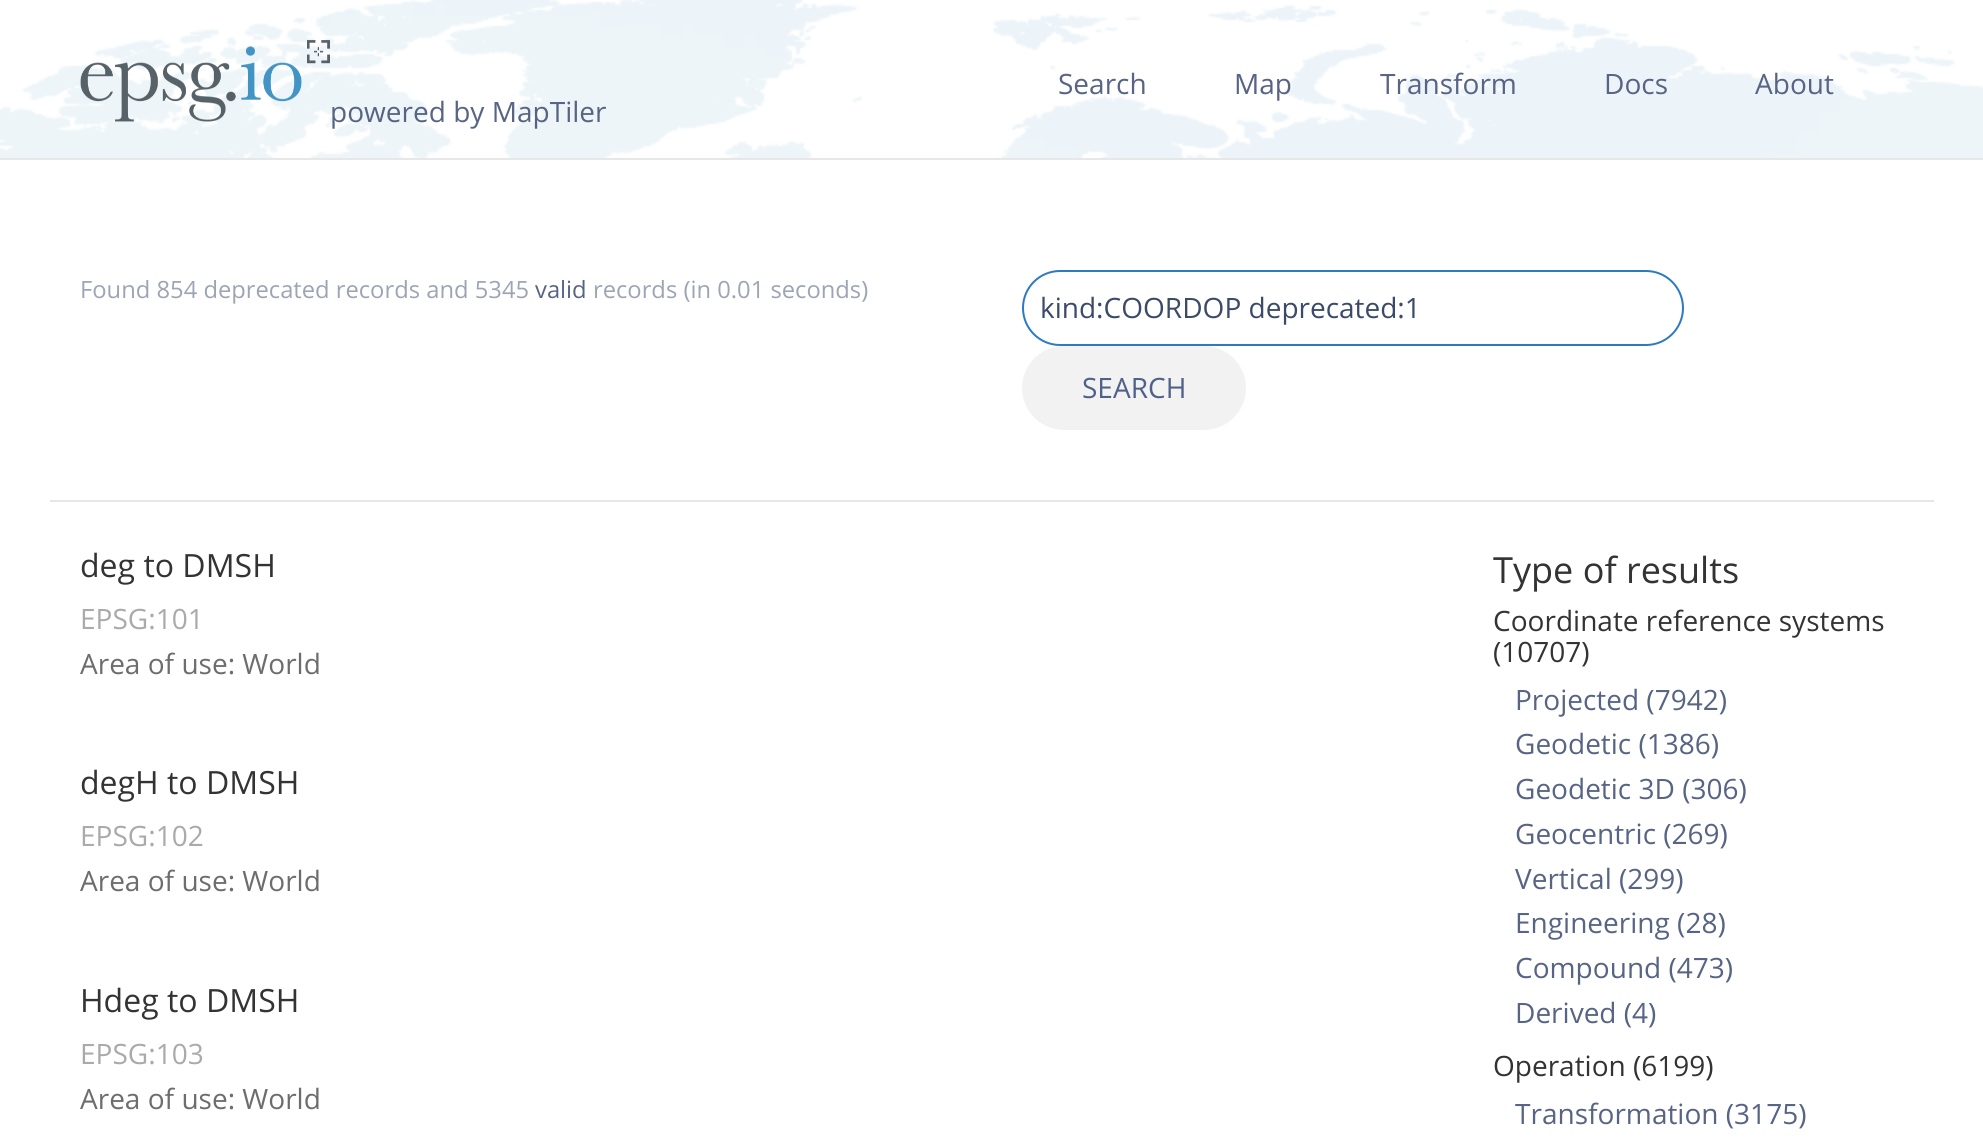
import math
import cairo

surface = cairo.ImageSurface(cairo.FORMAT_RGB24, 1983, 1146)
cr = cairo.Context(surface)
options = cairo.FontOptions()
options.set_hint_metrics(cairo.HINT_METRICS_OFF)
options.set_hint_style(cairo.HINT_STYLE_NONE)
cr.set_font_options(options)
cr.set_miter_limit(4)


def rgb(code):
    cr.set_source_rgb(*(v / 255 for v in bytes.fromhex(code[-6:])))


def rrect(x, y, w, h, r):
    cr.new_sub_path()
    for i, (u, v) in enumerate([(x + w - r, y + h - r), (x + r, y + h - r), (x + r, y + r), (x + w - r, y + r)]):
        cr.arc(u, v, r, i * math.pi / 2, (i + 1) * math.pi / 2)
    cr.close_path()


def image(path, x, y, w, h):
    cr.save()
    cr.set_source_surface(cairo.ImageSurface.create_from_png(path), x, y)
    cr.rectangle(x, y, w, h)
    cr.fill()
    cr.restore()


rgb("#ffffff")
cr.paint()
image("img/1.png", 0, 0, 1983, 158)
rgb("#e7e7e7")
cr.rectangle(0, 158, 1983, 2)
cr.fill()
image("img/2.png", 80, 40, 250, 82)
cr.rectangle(50, 500, 1884, 2)
cr.fill()
rrect(1023, 271, 660, 74, 37)
rgb("#2c7ac2")
cr.stroke()
rgb("#f2f2f2")
rrect(1022, 346, 224, 84, 42)
cr.fill()
cr.select_font_face("Open Sans")
cr.set_font_size(28)
rgb("#576484")
for x, y, s in [
    (1058, 94, "Search"),
    (1234, 94, "Map"),
    (1380, 94, "Transform"),
    (1604, 94, "Docs"),
    (1755, 94, "About"),
    (330, 122, "powered by MapTiler"),
]:
    cr.move_to(x, y)
    cr.show_text(s)
cr.set_font_size(23.75)
rgb("#9da4b4")
cr.move_to(80, 298)
cr.show_text("Found 854 deprecated records and 5345")
rgb("#576484")
cr.move_to(535, 298)
cr.show_text("valid")
rgb("#9da4b4")
cr.move_to(593, 298)
cr.show_text("records (in 0.01 seconds)")
cr.set_font_size(28)
rgb("#3c4a69")
cr.move_to(1040, 318)
cr.show_text("kind:COORDOP deprecated:1")
rgb("#4f6189")
cr.move_to(1082, 398)
cr.show_text("SEARCH")
cr.set_font_size(32)
rgb("#333333")
cr.move_to(80, 577)
cr.show_text("deg to DMSH")
cr.set_font_size(28)
rgb("#aaaaaa")
cr.move_to(80, 629)
cr.show_text("EPSG:101")
rgb("#6d6d6d")
cr.move_to(80, 674)
cr.show_text("Area of use: World")
cr.set_font_size(32)
rgb("#333333")
cr.move_to(80, 794)
cr.show_text("degH to DMSH")
cr.set_font_size(28)
rgb("#aaaaaa")
cr.move_to(80, 846)
cr.show_text("EPSG:102")
rgb("#6d6d6d")
cr.move_to(80, 891)
cr.show_text("Area of use: World")
cr.set_font_size(32)
rgb("#333333")
cr.move_to(80, 1012)
cr.show_text("Hdeg to DMSH")
cr.set_font_size(28)
rgb("#aaaaaa")
cr.move_to(80, 1064)
cr.show_text("EPSG:103")
rgb("#6d6d6d")
cr.move_to(80, 1109)
cr.show_text("Area of use: World")
cr.set_font_size(36)
rgb("#333333")
cr.move_to(1493, 583)
cr.show_text("Type of results")
cr.set_font_size(28)
cr.move_to(1493, 631)
cr.show_text("Coordinate reference systems")
cr.move_to(1493, 662)
cr.show_text("(10707)")
rgb("#576484")
for x, y, s in [
    (1515, 710, "Projected (7942)"),
    (1515, 754, "Geodetic (1386)"),
    (1515, 799, "Geodetic 3D (306)"),
    (1515, 844, "Geocentric (269)"),
    (1515, 889, "Vertical (299)"),
    (1515, 933, "Engineering (28)"),
    (1515, 978, "Compound (473)"),
    (1515, 1023, "Derived (4)"),
]:
    cr.move_to(x, y)
    cr.show_text(s)
rgb("#333333")
cr.move_to(1493, 1076)
cr.show_text("Operation (6199)")
rgb("#576484")
cr.move_to(1515, 1124)
cr.show_text("Transformation (3175)")
surface.write_to_png("page.png")
